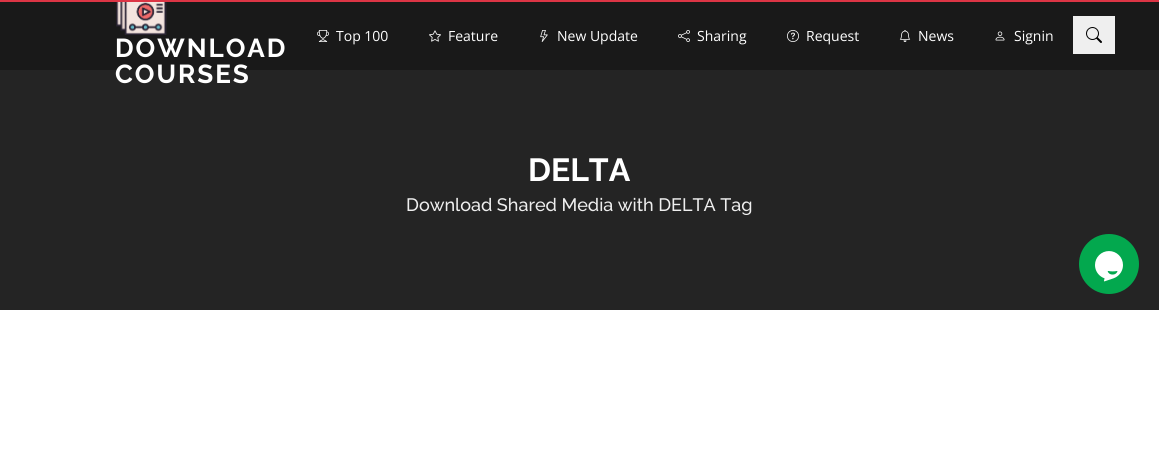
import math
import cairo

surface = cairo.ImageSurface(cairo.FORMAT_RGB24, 1159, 468)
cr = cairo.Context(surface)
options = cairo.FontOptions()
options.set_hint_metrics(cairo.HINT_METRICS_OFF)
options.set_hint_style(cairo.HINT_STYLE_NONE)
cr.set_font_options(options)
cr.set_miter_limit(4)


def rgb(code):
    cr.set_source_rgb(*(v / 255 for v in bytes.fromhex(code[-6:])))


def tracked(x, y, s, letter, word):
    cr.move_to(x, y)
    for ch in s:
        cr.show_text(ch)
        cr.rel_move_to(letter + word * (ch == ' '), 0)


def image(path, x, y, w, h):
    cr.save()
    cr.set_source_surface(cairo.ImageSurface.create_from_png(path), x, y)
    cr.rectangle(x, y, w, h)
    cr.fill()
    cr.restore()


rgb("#ffffff")
cr.paint()
rgb("#dc3545")
cr.rectangle(0, 0, 1159, 2)
cr.fill()
rgb("#191919")
cr.rectangle(0, 2, 1159, 68)
cr.fill()
image("img/1.png", 116, 2, 51, 33)
image("img/2.png", 317, 30, 12, 12)
image("img/3.png", 429, 30, 12, 12)
image("img/4.png", 540, 30, 8, 12)
image("img/5.png", 678, 30, 12, 12)
image("img/6.png", 787, 30, 12, 12)
image("img/7.png", 899, 30, 12, 12)
image("img/8.png", 995, 31, 10, 10)
rgb("#efefef")
cr.rectangle(1073, 16, 42, 38)
cr.fill()
image("img/9.png", 1086, 27, 16, 16)
rgb("#242424")
cr.rectangle(0, 70, 1159, 240)
cr.fill()
rgb("#03a84e")
cr.arc(1109, 264, 30, 0, 2 * math.pi)
cr.fill()
image("img/10.png", 1095, 251, 28, 31)
cr.select_font_face("Raleway", cairo.FONT_SLANT_NORMAL, cairo.FONT_WEIGHT_BOLD)
cr.set_font_size(26)
rgb("#ffffff")
tracked(115, 57, "DOWNLOAD", 2, 0)
tracked(115, 83, "COURSES", 2, 0)
cr.select_font_face("Open Sans")
cr.set_font_size(14)
for x, y, s in [
    (336, 41, "Top 100"),
    (448, 41, "Feature"),
    (557, 41, "New Update"),
    (697, 41, "Sharing"),
    (806, 41, "Request"),
    (918, 41, "News"),
    (1014, 41, "Signin"),
]:
    cr.move_to(x, y)
    cr.show_text(s)
cr.select_font_face("Raleway", cairo.FONT_SLANT_NORMAL, cairo.FONT_WEIGHT_BOLD)
cr.set_font_size(32)
cr.move_to(528, 181)
cr.show_text("DELTA")
cr.select_font_face("Raleway Medium")
cr.set_font_size(18)
rgb("#eeeeee")
cr.move_to(406, 211)
cr.show_text("Download Shared Media with DELTA Tag")
surface.write_to_png("page.png")
